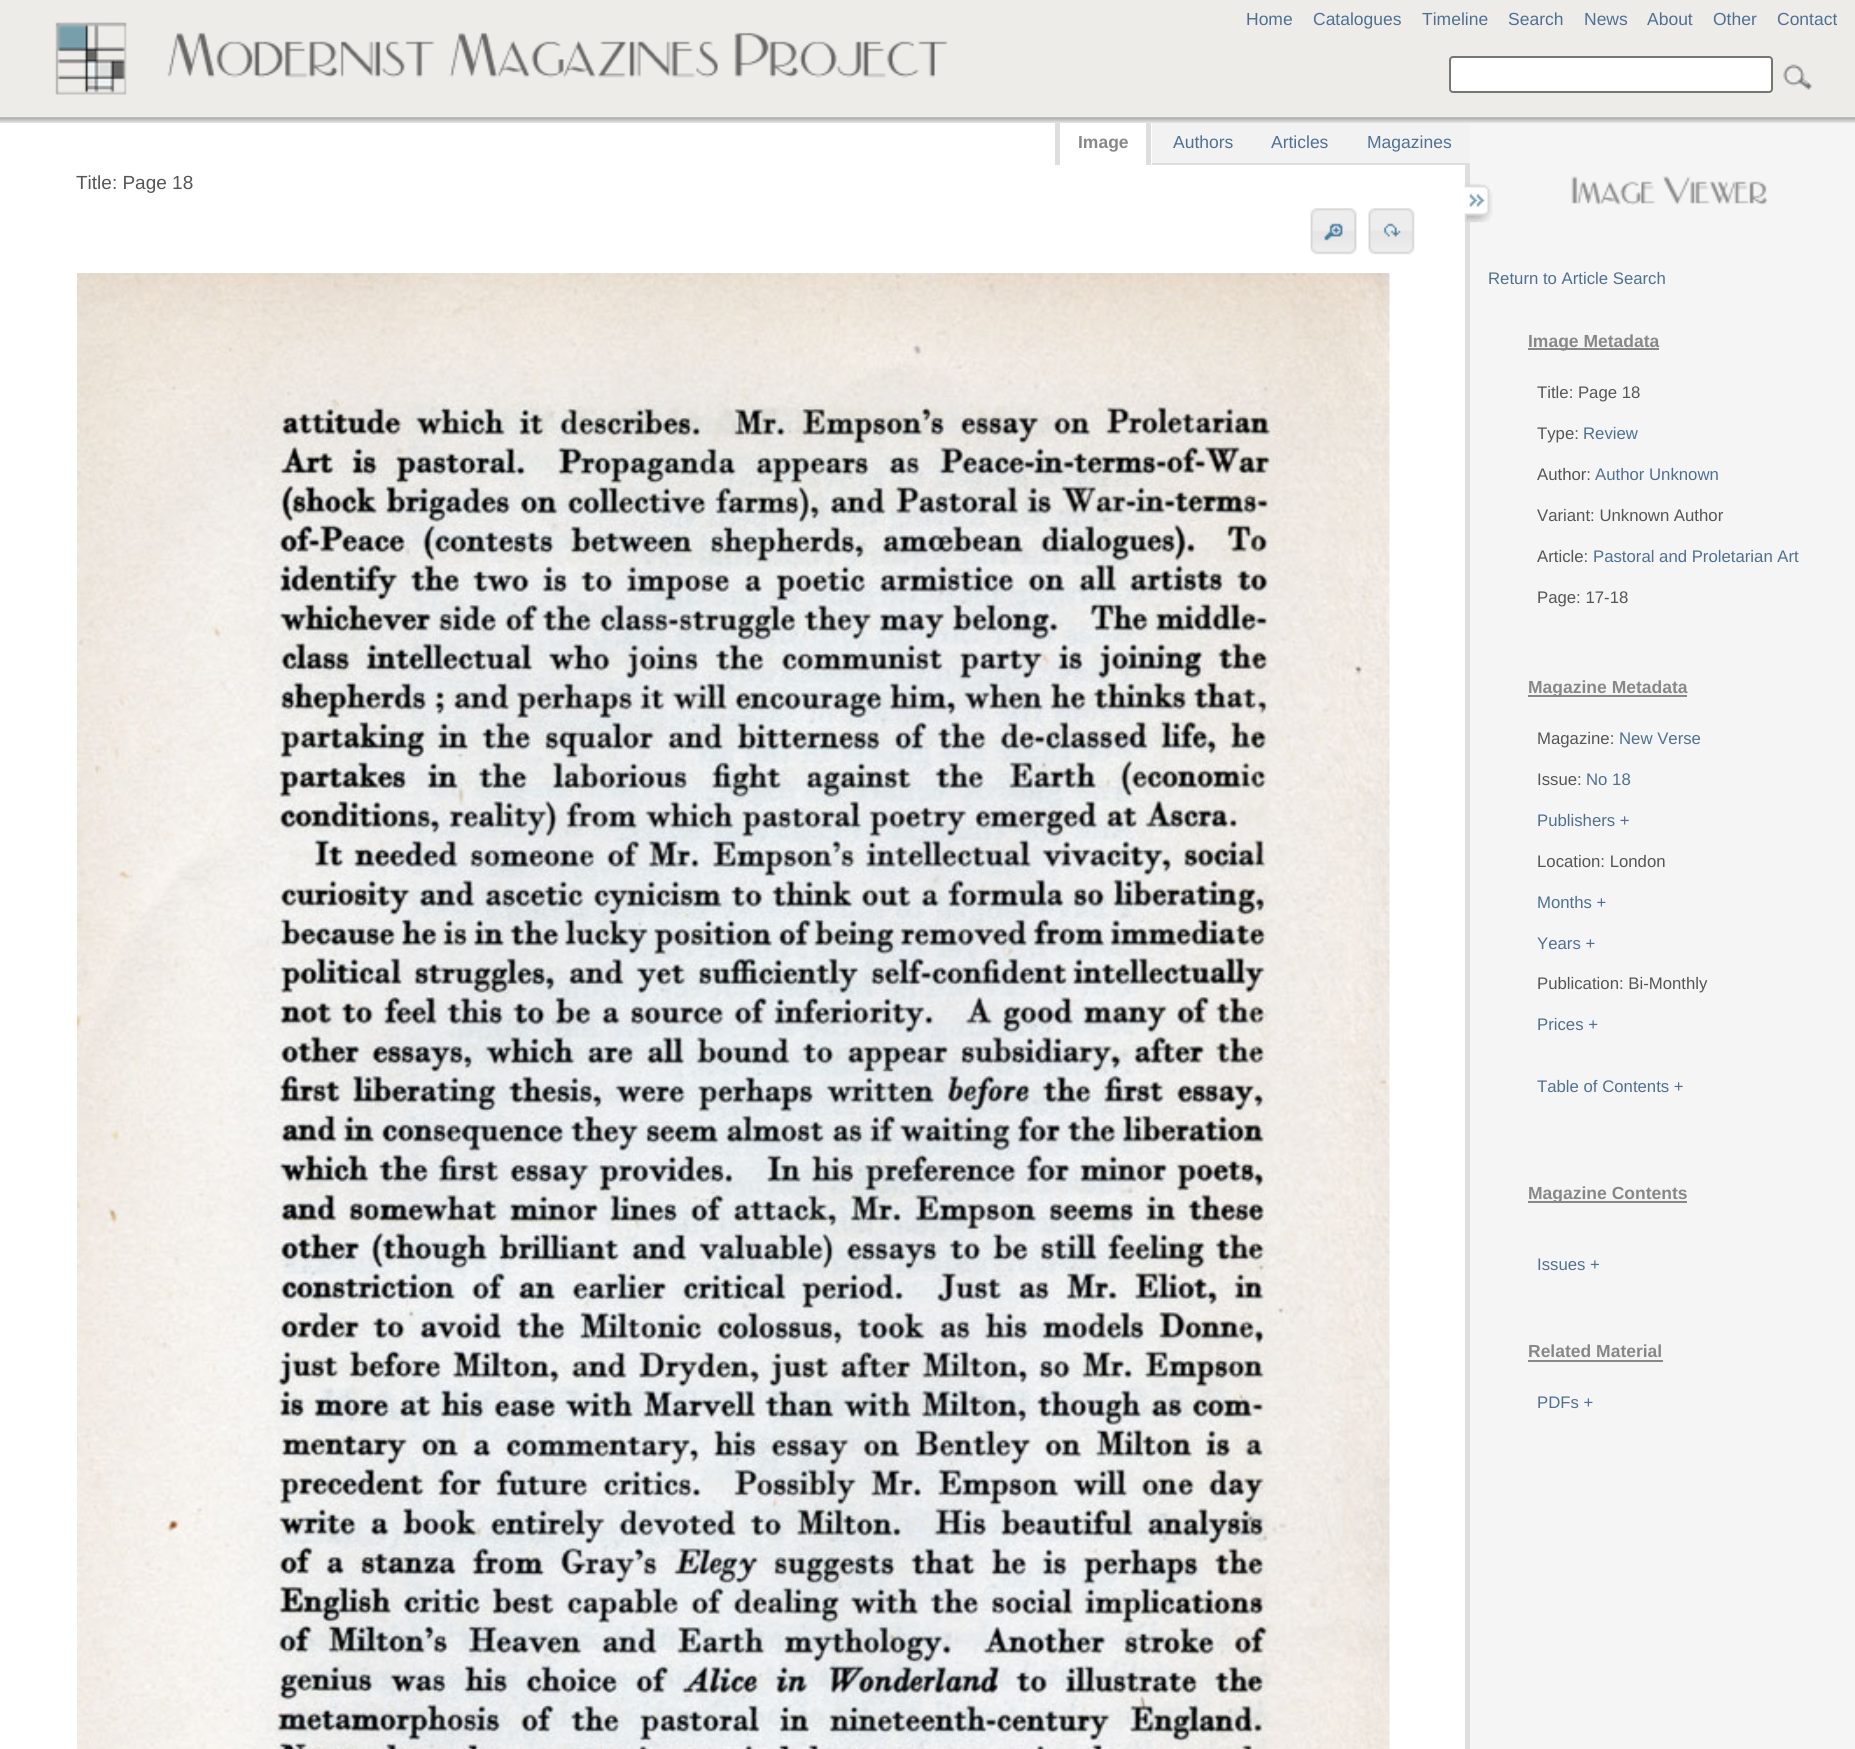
import math
import cairo

surface = cairo.ImageSurface(cairo.FORMAT_RGB24, 1855, 1749)
cr = cairo.Context(surface)
options = cairo.FontOptions()
options.set_hint_metrics(cairo.HINT_METRICS_OFF)
options.set_hint_style(cairo.HINT_STYLE_NONE)
cr.set_font_options(options)
cr.set_miter_limit(4)


def rgb(code):
    cr.set_source_rgb(*(v / 255 for v in bytes.fromhex(code[-6:])))


def rrect(x, y, w, h, r):
    cr.new_sub_path()
    for i, (u, v) in enumerate([(x + w - r, y + h - r), (x + r, y + h - r), (x + r, y + r), (x + w - r, y + r)]):
        cr.arc(u, v, r, i * math.pi / 2, (i + 1) * math.pi / 2)
    cr.close_path()


def image(path, x, y, w, h):
    cr.save()
    cr.set_source_surface(cairo.ImageSurface.create_from_png(path), x, y)
    cr.rectangle(x, y, w, h)
    cr.fill()
    cr.restore()


rgb("#edece9")
cr.paint()
image("img/1.png", 0, 117, 1855, 6)
image("img/2.png", 55, 22, 893, 73)
rgb("#ffffff")
rrect(1450, 57, 322, 35, 3)
cr.fill_preserve()
rgb("#767676")
cr.stroke()
image("img/3.png", 1783, 64, 29, 26)
for x, y, w, h, color in [
    (1470, 123, 385, 1626, "#f5f5f5"),
    (0, 123, 1465, 1626, "#ffffff"),
    (1465, 165, 5, 1584, "#dedede"),
    (1152, 123, 318, 40, "#f2f2f2"),
    (1152, 163, 318, 2, "#dedede"),
    (1146, 123, 5, 42, "#dedede"),
    (1055, 123, 5, 42, "#dedede"),
]:
    rgb(color)
    cr.rectangle(x, y, w, h)
    cr.fill()
image("img/4.png", 1310, 208, 47, 47)
image("img/5.png", 1368, 208, 47, 47)
image("img/6.png", 77, 273, 1313, 1476)
image("img/7.png", 1464, 183, 29, 40)
image("img/8.png", 1571, 176, 197, 29)
for x, y, w, h, color in [
    (1528, 348, 131, 2, "#888888"),
    (1528, 695, 159, 2, "#888888"),
    (1528, 1201, 159, 2, "#888888"),
    (1528, 1360, 135, 2, "#888888"),
]:
    rgb(color)
    cr.rectangle(x, y, w, h)
    cr.fill()
cr.select_font_face("Liberation Sans")
cr.set_font_size(17.5)
rgb("#4e7093")
for x, y, s in [
    (1246, 25, "Home"),
    (1313, 25, "Catalogues"),
    (1422, 25, "Timeline"),
    (1508, 25, "Search"),
    (1584, 25, "News"),
    (1647, 25, "About"),
    (1713, 25, "Other"),
    (1777, 25, "Contact"),
]:
    cr.move_to(x, y)
    cr.show_text(s)
cr.select_font_face("Liberation Sans", cairo.FONT_SLANT_NORMAL, cairo.FONT_WEIGHT_BOLD)
rgb("#888888")
cr.move_to(1078, 148)
cr.show_text("Image")
cr.select_font_face("Liberation Sans")
rgb("#4e7093")
for x, y, s in [
    (1173, 148, "Authors"),
    (1271, 148, "Articles"),
    (1367, 148, "Magazines"),
]:
    cr.move_to(x, y)
    cr.show_text(s)
cr.set_font_size(19)
rgb("#555555")
cr.move_to(76, 189)
cr.show_text("Title: Page 18")
cr.set_font_size(16.75)
rgb("#4e7093")
cr.move_to(1488, 284)
cr.show_text("Return to Article Search")
cr.select_font_face("Liberation Sans", cairo.FONT_SLANT_NORMAL, cairo.FONT_WEIGHT_BOLD)
cr.set_font_size(17.5)
rgb("#888888")
cr.move_to(1528, 347)
cr.show_text("Image Metadata")
cr.select_font_face("Liberation Sans")
cr.set_font_size(16.75)
rgb("#555555")
cr.move_to(1537, 398)
cr.show_text("Title: Page 18")
cr.move_to(1537, 439)
cr.show_text("Type:")
rgb("#4e7093")
cr.move_to(1583, 439)
cr.show_text("Review")
rgb("#555555")
cr.move_to(1537, 480)
cr.show_text("Author:")
rgb("#4e7093")
cr.move_to(1595, 480)
cr.show_text("Author Unknown")
rgb("#555555")
cr.move_to(1537, 521)
cr.show_text("Variant: Unknown Author")
cr.move_to(1537, 562)
cr.show_text("Article:")
rgb("#4e7093")
cr.move_to(1593, 562)
cr.show_text("Pastoral and Proletarian Art")
rgb("#555555")
cr.move_to(1537, 603)
cr.show_text("Page: 17-18")
cr.select_font_face("Liberation Sans", cairo.FONT_SLANT_NORMAL, cairo.FONT_WEIGHT_BOLD)
cr.set_font_size(17.5)
rgb("#888888")
cr.move_to(1528, 693)
cr.show_text("Magazine Metadata")
cr.select_font_face("Liberation Sans")
cr.set_font_size(16.75)
rgb("#555555")
cr.move_to(1537, 744)
cr.show_text("Magazine:")
rgb("#4e7093")
cr.move_to(1619, 744)
cr.show_text("New Verse")
rgb("#555555")
cr.move_to(1537, 785)
cr.show_text("Issue:")
rgb("#4e7093")
cr.move_to(1586, 785)
cr.show_text("No 18")
cr.move_to(1537, 826)
cr.show_text("Publishers +")
rgb("#555555")
cr.move_to(1537, 867)
cr.show_text("Location: London")
rgb("#4e7093")
cr.move_to(1537, 908)
cr.show_text("Months +")
cr.move_to(1537, 949)
cr.show_text("Years +")
rgb("#555555")
cr.move_to(1537, 989)
cr.show_text("Publication: Bi-Monthly")
rgb("#4e7093")
cr.move_to(1537, 1030)
cr.show_text("Prices +")
cr.move_to(1537, 1092)
cr.show_text("Table of Contents +")
cr.select_font_face("Liberation Sans", cairo.FONT_SLANT_NORMAL, cairo.FONT_WEIGHT_BOLD)
cr.set_font_size(17.5)
rgb("#888888")
cr.move_to(1528, 1199)
cr.show_text("Magazine Contents")
cr.select_font_face("Liberation Sans")
cr.set_font_size(16.75)
rgb("#4e7093")
cr.move_to(1537, 1270)
cr.show_text("Issues +")
cr.select_font_face("Liberation Sans", cairo.FONT_SLANT_NORMAL, cairo.FONT_WEIGHT_BOLD)
cr.set_font_size(17.5)
rgb("#888888")
cr.move_to(1528, 1357)
cr.show_text("Related Material")
cr.select_font_face("Liberation Sans")
cr.set_font_size(16.75)
rgb("#4e7093")
cr.move_to(1537, 1408)
cr.show_text("PDFs +")
surface.write_to_png("page.png")
